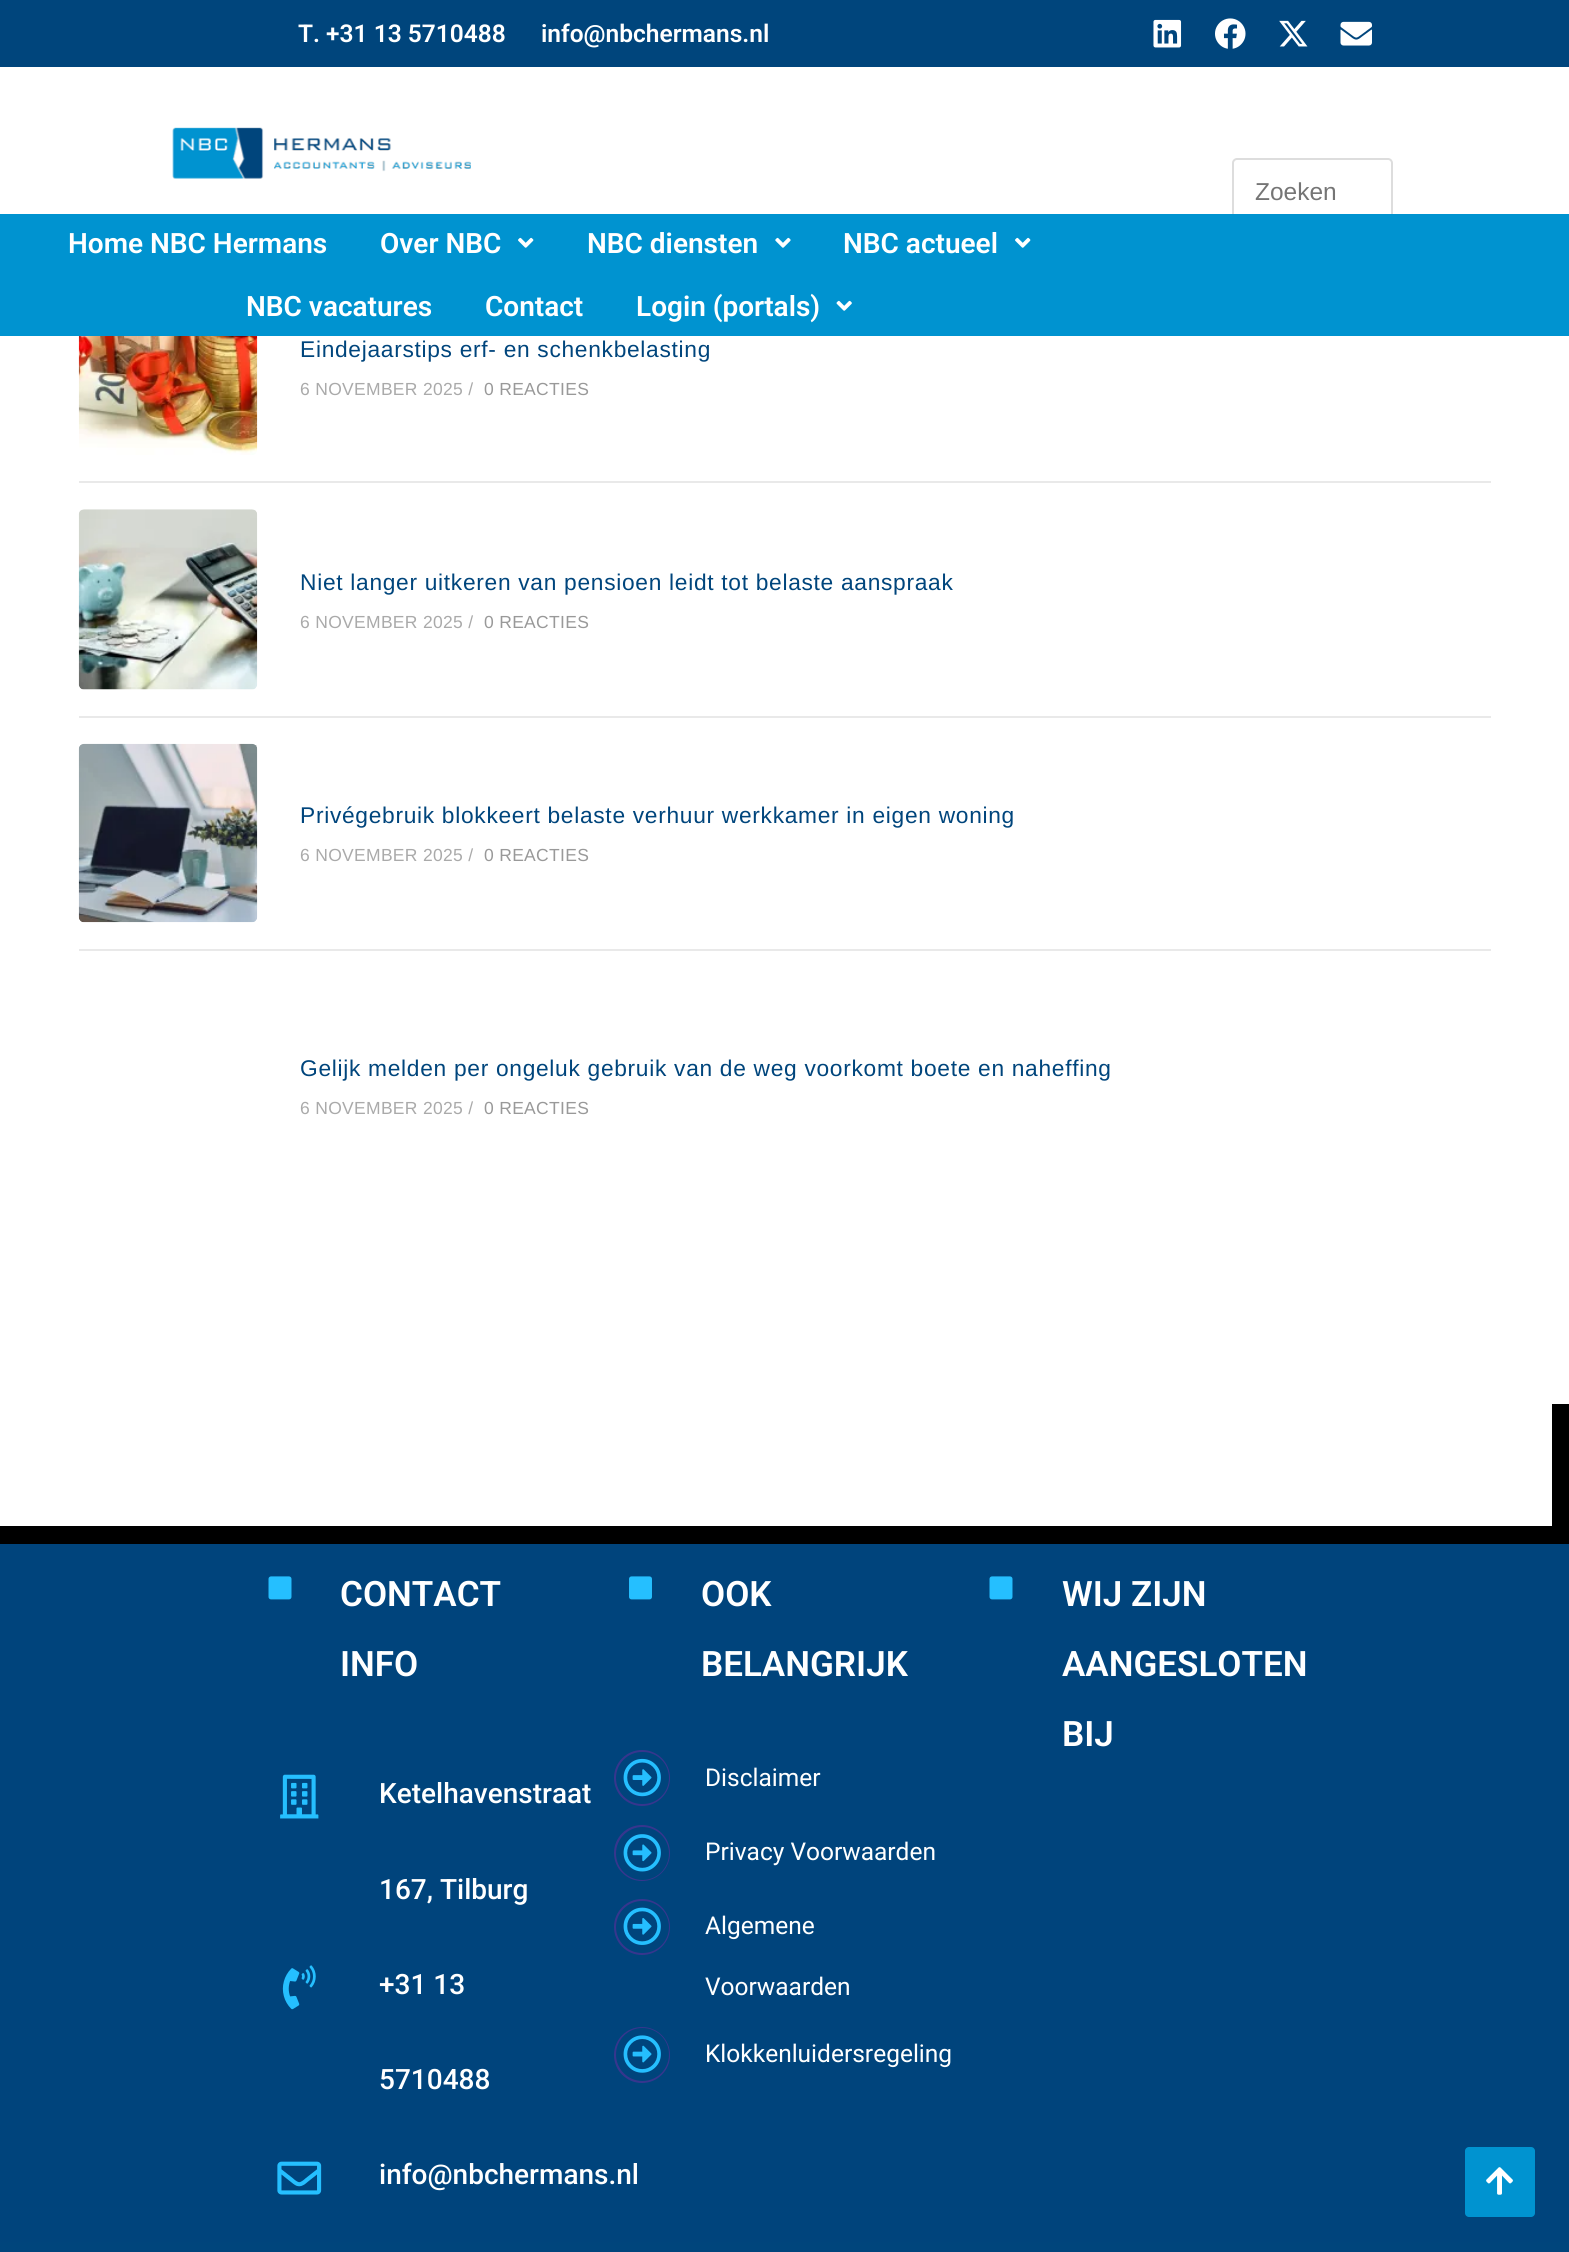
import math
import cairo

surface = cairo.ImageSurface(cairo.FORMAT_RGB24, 1569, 2252)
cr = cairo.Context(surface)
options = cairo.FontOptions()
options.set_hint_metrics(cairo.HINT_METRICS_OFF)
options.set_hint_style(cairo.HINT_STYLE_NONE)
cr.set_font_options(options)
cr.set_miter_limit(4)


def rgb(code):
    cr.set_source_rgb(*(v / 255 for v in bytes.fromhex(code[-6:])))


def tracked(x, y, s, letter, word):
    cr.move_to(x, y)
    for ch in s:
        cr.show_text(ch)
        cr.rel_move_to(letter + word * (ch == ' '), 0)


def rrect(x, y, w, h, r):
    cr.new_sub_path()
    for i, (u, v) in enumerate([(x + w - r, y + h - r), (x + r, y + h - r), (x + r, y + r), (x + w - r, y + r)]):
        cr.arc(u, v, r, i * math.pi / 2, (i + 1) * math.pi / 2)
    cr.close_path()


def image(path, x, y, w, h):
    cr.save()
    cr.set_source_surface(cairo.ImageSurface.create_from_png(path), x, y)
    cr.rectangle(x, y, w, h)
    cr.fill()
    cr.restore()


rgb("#ffffff")
cr.paint()
rgb("#00457c")
cr.rectangle(0, 0, 1569, 67)
cr.fill()
image("img/1.png", 1153, 19, 29, 29)
image("img/2.png", 1215, 18, 31, 31)
image("img/3.png", 1279, 20, 29, 27)
image("img/4.png", 1340, 21, 32, 25)
image("img/5.png", 172, 127, 299, 52)
rrect(1233, 159, 159, 68, 4)
rgb("#dddddd")
cr.stroke()
rgb("#0093d0")
cr.rectangle(0, 214, 1569, 122)
cr.fill()
image("img/6.png", 518, 237, 16, 11)
image("img/7.png", 775, 237, 16, 11)
image("img/6.png", 1015, 237, 16, 11)
image("img/8.png", 836, 300, 16, 11)
image("img/9.png", 78, 336, 180, 119)
rgb("#e9e9e9")
cr.rectangle(79, 481, 1412, 2)
cr.fill()
image("img/10.png", 78, 509, 180, 181)
cr.rectangle(79, 716, 1412, 2)
cr.fill()
image("img/11.png", 78, 743, 180, 180)
for x, y, w, h, color in [
    (79, 949, 1412, 2, "#e9e9e9"),
    (1552, 1404, 17, 122, "#000000"),
    (0, 1526, 1569, 18, "#000000"),
    (0, 1544, 1569, 698, "#00447c"),
]:
    rgb(color)
    cr.rectangle(x, y, w, h)
    cr.fill()
image("img/12.png", 268, 1576, 24, 24)
image("img/13.png", 280, 1774, 39, 45)
image("img/14.png", 282, 1965, 34, 45)
image("img/15.png", 277, 2161, 45, 34)
image("img/16.png", 629, 1576, 23, 24)
rgb("#37368e")
cr.arc(642, 1778, 28, 0, 2 * math.pi)
cr.fill()
rgb("#00447c")
rrect(616, 1752, 53, 52, 26)
cr.fill()
image("img/17.png", 623, 1758, 38, 39)
rgb("#37368e")
cr.arc(642, 1853, 28, 0, 2 * math.pi)
cr.fill()
rgb("#00447c")
cr.arc(642.5, 1853.5, 26.5, 0, 2 * math.pi)
cr.fill()
image("img/18.png", 623, 1834, 38, 38)
rgb("#37368e")
cr.arc(642, 1927, 28, 0, 2 * math.pi)
cr.fill()
rgb("#00447c")
rrect(616, 1901, 53, 52, 26)
cr.fill()
image("img/19.png", 623, 1907, 38, 38)
rgb("#37368e")
cr.arc(642, 2055, 28, 0, 2 * math.pi)
cr.fill()
rgb("#00447c")
cr.arc(642.5, 2054.5, 26.5, 0, 2 * math.pi)
cr.fill()
image("img/20.png", 623, 2035, 38, 38)
image("img/12.png", 989, 1576, 24, 24)
rgb("#00457c")
cr.rectangle(0, 2242, 1569, 10)
cr.fill()
rgb("#0093d0")
rrect(1465, 2147, 70, 70, 4)
cr.fill()
image("img/21.png", 1486, 2167, 27, 28)
cr.select_font_face("Roboto SemiBold")
cr.set_font_size(24.5)
rgb("#ffffff")
cr.move_to(298, 42)
cr.show_text("T. +31 13 5710488")
cr.move_to(541, 42)
cr.show_text("info@nbchermans.nl")
cr.select_font_face("Liberation Sans")
rgb("#757575")
cr.move_to(1255, 200)
cr.show_text("Zoeken")
cr.select_font_face("Roboto SemiBold")
cr.set_font_size(28)
rgb("#ffffff")
for x, y, s in [
    (68, 253, "Home NBC Hermans"),
    (380, 253, "Over NBC"),
    (587, 253, "NBC diensten"),
    (843, 253, "NBC actueel"),
    (246, 316, "NBC vacatures"),
    (485, 316, "Contact"),
    (636, 316, "Login (portals)"),
]:
    cr.move_to(x, y)
    cr.show_text(s)
cr.select_font_face("Liberation Sans")
cr.set_font_size(22.75)
rgb("#00457c")
tracked(300, 357, "Eindejaarstips erf- en schenkbelasting", 0.7, 0)
cr.set_font_size(17.5)
rgb("#aaaaaa")
tracked(300, 395, "6 NOVEMBER 2025 /", 0.3, 0)
rgb("#999999")
tracked(484, 395, "0 REACTIES", 0.3, 0)
cr.set_font_size(22.75)
rgb("#00457c")
tracked(300, 590, "Niet langer uitkeren van pensioen leidt tot belaste aanspraak", 0.7, 0)
cr.set_font_size(17.5)
rgb("#aaaaaa")
tracked(300, 628, "6 NOVEMBER 2025 /", 0.3, 0)
rgb("#999999")
tracked(484, 628, "0 REACTIES", 0.3, 0)
cr.set_font_size(22.75)
rgb("#00457c")
tracked(300, 823, "Privégebruik blokkeert belaste verhuur werkkamer in eigen woning", 0.7, 0)
cr.set_font_size(17.5)
rgb("#aaaaaa")
tracked(300, 861, "6 NOVEMBER 2025 /", 0.3, 0)
rgb("#999999")
tracked(484, 861, "0 REACTIES", 0.3, 0)
cr.set_font_size(22.75)
rgb("#00457c")
tracked(300, 1076, "Gelijk melden per ongeluk gebruik van de weg voorkomt boete en naheffing", 0.7, 0)
cr.set_font_size(17.5)
rgb("#aaaaaa")
tracked(300, 1114, "6 NOVEMBER 2025 /", 0.3, 0)
rgb("#999999")
tracked(484, 1114, "0 REACTIES", 0.3, 0)
cr.select_font_face("Roboto SemiBold")
cr.set_font_size(35)
rgb("#ffffff")
cr.move_to(340, 1606)
cr.show_text("CONTACT")
cr.move_to(340, 1676)
cr.show_text("INFO")
cr.select_font_face("Roboto Medium")
cr.set_font_size(28)
for x, y, s in [
    (379, 1803, "Ketelhavenstraat"),
    (379, 1899, "167, Tilburg"),
    (379, 1994, "+31 13"),
    (379, 2089, "5710488"),
    (379, 2184, "info@nbchermans.nl"),
]:
    cr.move_to(x, y)
    cr.show_text(s)
cr.select_font_face("Roboto SemiBold")
cr.set_font_size(35)
cr.move_to(701, 1606)
cr.show_text("OOK")
cr.move_to(701, 1676)
cr.show_text("BELANGRIJK")
cr.select_font_face("Roboto")
cr.set_font_size(24.5)
for x, y, s in [
    (705, 1786, "Disclaimer"),
    (705, 1860, "Privacy Voorwaarden"),
    (705, 1934, "Algemene"),
    (705, 1995, "Voorwaarden"),
    (705, 2062, "Klokkenluidersregeling"),
]:
    cr.move_to(x, y)
    cr.show_text(s)
cr.select_font_face("Roboto SemiBold")
cr.set_font_size(35)
for x, y, s in [
    (1062, 1606, "WIJ ZIJN"),
    (1062, 1676, "AANGESLOTEN"),
    (1062, 1746, "BIJ"),
]:
    cr.move_to(x, y)
    cr.show_text(s)
surface.write_to_png("page.png")
